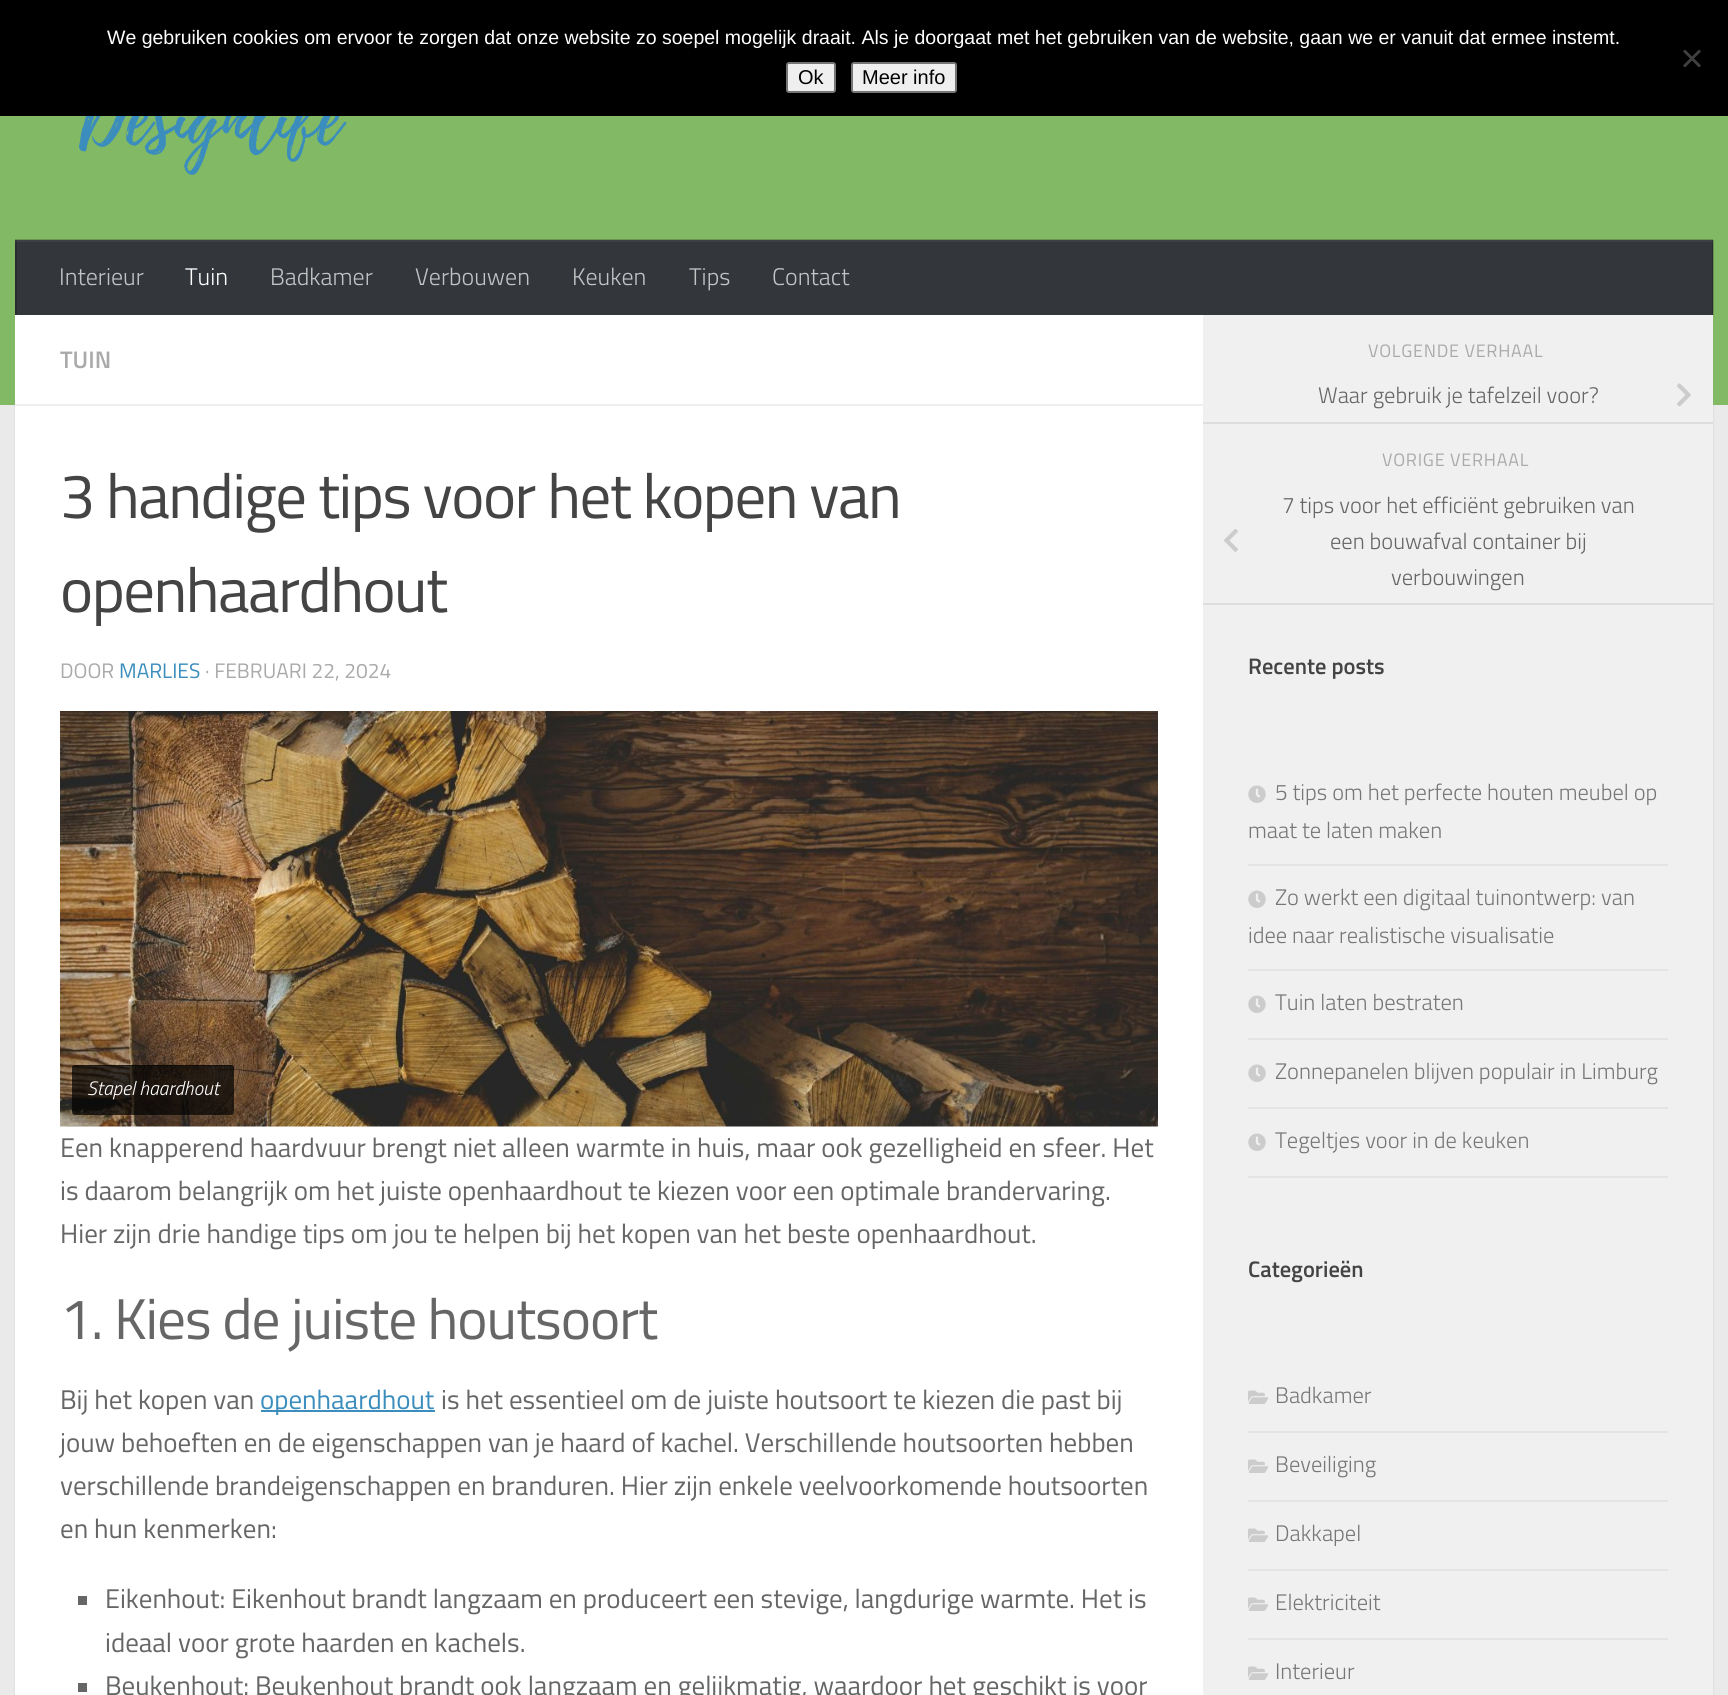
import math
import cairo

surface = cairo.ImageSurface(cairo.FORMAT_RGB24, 1728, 1695)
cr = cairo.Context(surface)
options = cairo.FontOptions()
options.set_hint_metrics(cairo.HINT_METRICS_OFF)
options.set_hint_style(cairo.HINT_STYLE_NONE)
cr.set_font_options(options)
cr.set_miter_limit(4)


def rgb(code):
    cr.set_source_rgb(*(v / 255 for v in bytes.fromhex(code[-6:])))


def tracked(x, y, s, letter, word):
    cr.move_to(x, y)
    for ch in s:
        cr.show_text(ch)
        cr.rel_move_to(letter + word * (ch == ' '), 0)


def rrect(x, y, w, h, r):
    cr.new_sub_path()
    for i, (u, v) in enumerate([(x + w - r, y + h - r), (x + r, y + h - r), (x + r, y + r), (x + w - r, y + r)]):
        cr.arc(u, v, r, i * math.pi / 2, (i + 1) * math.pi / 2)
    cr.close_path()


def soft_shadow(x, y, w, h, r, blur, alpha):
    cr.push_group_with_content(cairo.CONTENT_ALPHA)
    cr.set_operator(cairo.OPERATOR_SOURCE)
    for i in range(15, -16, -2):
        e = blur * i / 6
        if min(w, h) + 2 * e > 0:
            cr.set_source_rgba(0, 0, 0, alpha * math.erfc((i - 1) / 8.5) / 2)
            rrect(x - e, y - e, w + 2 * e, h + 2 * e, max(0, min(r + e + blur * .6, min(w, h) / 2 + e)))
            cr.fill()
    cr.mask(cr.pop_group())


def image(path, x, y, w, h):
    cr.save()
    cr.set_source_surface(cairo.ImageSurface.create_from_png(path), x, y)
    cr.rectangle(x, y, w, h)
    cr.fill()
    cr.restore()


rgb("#eaeaea")
cr.paint()
rgb("#000000")
cr.rectangle(0, 0, 1728, 116)
cr.fill()
rgb("#404040")
cr.new_path()
cr.move_to(1699, 49.5)
cr.line_to(1701, 51.5)
cr.line_to(1685, 67.5)
cr.line_to(1683, 65.5)
cr.close_path()
cr.fill()
cr.new_path()
cr.move_to(1683, 51.5)
cr.line_to(1685, 49.5)
cr.line_to(1701, 65.5)
cr.line_to(1699, 67.5)
cr.close_path()
cr.fill()
rgb("#efefef")
rrect(787, 63, 48, 29, 2)
cr.fill_preserve()
rgb("#767676")
cr.stroke()
rgb("#efefef")
rrect(852, 63, 104, 29, 2)
cr.fill_preserve()
rgb("#767676")
cr.stroke()
rgb("#000000")
soft_shadow(15, 317, 1698, 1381, 0, 1, 0.1)
rgb("#82b965")
cr.rectangle(0, 116, 1728, 289)
cr.fill()
rgb("#689451")
cr.rectangle(1713, 240, 1, 75)
cr.fill()
image("img/1.png", 79, 116, 268, 59)
for x, y, w, h, color in [
    (15, 239, 1698, 1, "#689451"),
    (17, 242, 1695, 73, "#33363b"),
    (15, 240, 1698, 2, "#3d4045"),
    (1712, 240, 1, 75, "#292b2f"),
    (1712, 240, 1, 2, "#343639"),
    (15, 240, 2, 75, "#292b2f"),
    (15, 240, 2, 2, "#343639"),
    (15, 315, 1188, 1380, "#ffffff"),
    (1203, 315, 510, 1380, "#f0f0f0"),
    (15, 404, 1188, 2, "#eeeeee"),
]:
    rgb(color)
    cr.rectangle(x, y, w, h)
    cr.fill()
image("img/2.png", 60, 711, 1098, 416)
cr.set_source_rgba(1, 1, 1, 0.03)
cr.new_path()
cr.move_to(72, 1112)
cr.curve_to(72, 1113, 72, 1115, 74, 1116)
cr.line_to(232, 1116)
cr.curve_to(234, 1115, 234, 1113, 234, 1112)
cr.curve_to(234, 1113, 233, 1114, 231, 1114)
cr.line_to(75, 1114)
cr.curve_to(73, 1114, 72, 1113, 72, 1112)
cr.close_path()
cr.fill()
cr.set_source_rgba(0, 0, 0, 0.7)
rrect(72, 1065, 162, 50, 3)
cr.fill()
cr.set_source_rgba(0, 0, 0, 0.4)
cr.new_path()
cr.move_to(75, 1066)
cr.line_to(231, 1066)
cr.curve_to(233, 1066, 234, 1068, 234, 1070)
cr.line_to(234, 1068)
cr.curve_to(234, 1066, 233, 1065, 231, 1065)
cr.line_to(75, 1065)
cr.curve_to(73, 1065, 72, 1066, 72, 1068)
cr.line_to(72, 1070)
cr.curve_to(72, 1068, 73, 1066, 75, 1066)
cr.close_path()
cr.fill()
for x, y, w, h, color in [
    (261, 1410, 174, 2, "#3b8dbd"),
    (78, 1596, 9, 9, "#666666"),
    (78, 1683, 9, 9, "#666666"),
    (1203, 422, 510, 2, "#dddddd"),
]:
    rgb(color)
    cr.rectangle(x, y, w, h)
    cr.fill()
image("img/3.png", 1677, 383, 14, 24)
cr.rectangle(1203, 603, 510, 2)
cr.fill()
image("img/4.png", 1224, 529, 14, 23)
rgb("#e4e4e4")
cr.rectangle(1248, 864, 420, 2)
cr.fill()
image("img/5.png", 1248, 785, 18, 18)
cr.rectangle(1248, 969, 420, 2)
cr.fill()
image("img/5.png", 1248, 890, 18, 18)
cr.rectangle(1248, 1038, 420, 2)
cr.fill()
image("img/5.png", 1248, 995, 18, 18)
cr.rectangle(1248, 1107, 420, 2)
cr.fill()
image("img/5.png", 1248, 1064, 18, 18)
cr.rectangle(1248, 1176, 420, 2)
cr.fill()
image("img/5.png", 1248, 1133, 18, 18)
cr.rectangle(1248, 1431, 420, 2)
cr.fill()
image("img/6.png", 1248, 1390, 21, 14)
cr.rectangle(1248, 1500, 420, 2)
cr.fill()
image("img/6.png", 1248, 1459, 21, 14)
cr.rectangle(1248, 1569, 420, 2)
cr.fill()
image("img/6.png", 1248, 1528, 21, 14)
cr.rectangle(1248, 1638, 420, 2)
cr.fill()
image("img/6.png", 1248, 1597, 21, 14)
image("img/6.png", 1248, 1666, 21, 14)
cr.select_font_face("Liberation Sans")
cr.set_font_size(19.5)
rgb("#ffffff")
cr.move_to(107, 44)
cr.show_text("We gebruiken cookies om ervoor te zorgen dat onze website zo soepel mogelijk draait. Als je doorgaat met het gebruiken van de website, gaan we er vanuit dat ermee instemt.")
cr.set_font_size(20)
rgb("#000000")
cr.move_to(798, 84)
cr.show_text("Ok")
cr.move_to(862, 84)
cr.show_text("Meer info")
cr.select_font_face("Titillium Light")
cr.set_font_size(24)
rgb("#c2c3c4")
cr.move_to(59, 285)
cr.show_text("Interieur")
rgb("#ffffff")
cr.move_to(185, 285)
cr.show_text("Tuin")
rgb("#c2c3c4")
for x, y, s in [
    (270, 285, "Badkamer"),
    (415, 285, "Verbouwen"),
    (572, 285, "Keuken"),
    (689, 285, "Tips"),
    (772, 285, "Contact"),
]:
    cr.move_to(x, y)
    cr.show_text(s)
cr.select_font_face("Titillium SemiBold")
rgb("#aaaaaa")
cr.move_to(60, 368)
cr.show_text("TUIN")
cr.select_font_face("Titillium")
cr.set_font_size(62.9)
rgb("#444444")
tracked(60, 518, "3 handige tips voor het kopen van", -1.5, 0)
tracked(60, 612, "openhaardhout", -1.5, 0)
cr.set_font_size(21)
rgb("#aaaaaa")
cr.move_to(60, 678)
cr.show_text("DOOR")
rgb("#3b8dbd")
cr.move_to(119, 678)
cr.show_text("MARLIES")
rgb("#aaaaaa")
cr.move_to(205, 678)
cr.show_text("· FEBRUARI 22, 2024")
cr.select_font_face("Titillium Light", cairo.FONT_SLANT_ITALIC)
cr.set_font_size(19.5)
rgb("#ffffff")
cr.move_to(87, 1095)
cr.show_text("Stapel haardhout")
cr.select_font_face("Titillium")
cr.set_font_size(27)
rgb("#666666")
for x, y, s in [
    (60, 1157, "Een knapperend haardvuur brengt niet alleen warmte in huis, maar ook gezelligheid en sfeer. Het"),
    (60, 1200, "is daarom belangrijk om het juiste openhaardhout te kiezen voor een optimale brandervaring."),
    (60, 1243, "Hier zijn drie handige tips om jou te helpen bij het kopen van het beste openhaardhout."),
]:
    cr.move_to(x, y)
    cr.show_text(s)
cr.set_font_size(57.4)
tracked(60, 1339, "1. Kies de juiste houtsoort", -1.05, 0)
cr.set_font_size(27)
cr.move_to(60, 1409)
cr.show_text("Bij het kopen van")
rgb("#3b8dbd")
cr.move_to(260, 1409)
cr.show_text("openhaardhout")
rgb("#666666")
for x, y, s in [
    (441, 1409, "is het essentieel om de juiste houtsoort te kiezen die past bij"),
    (60, 1452, "jouw behoeften en de eigenschappen van je haard of kachel. Verschillende houtsoorten hebben"),
    (60, 1495, "verschillende brandeigenschappen en branduren. Hier zijn enkele veelvoorkomende houtsoorten"),
    (60, 1538, "en hun kenmerken:"),
    (105, 1608, "Eikenhout: Eikenhout brandt langzaam en produceert een stevige, langdurige warmte. Het is"),
    (105, 1652, "ideaal voor grote haarden en kachels."),
    (105, 1695, "Beukenhout: Beukenhout brandt ook langzaam en gelijkmatig, waardoor het geschikt is voor"),
]:
    cr.move_to(x, y)
    cr.show_text(s)
cr.set_font_size(18)
rgb("#aaaaaa")
tracked(1368, 357, "VOLGENDE VERHAAL", 0.75, 0)
cr.select_font_face("Titillium Light")
cr.set_font_size(22.5)
rgb("#666666")
cr.move_to(1318, 403)
cr.show_text("Waar gebruik je tafelzeil voor?")
cr.select_font_face("Titillium")
cr.set_font_size(18)
rgb("#aaaaaa")
tracked(1382, 466, "VORIGE VERHAAL", 0.75, 0)
cr.select_font_face("Titillium Light")
cr.set_font_size(22.5)
rgb("#666666")
for x, y, s in [
    (1282, 513, "7 tips voor het efficiënt gebruiken van"),
    (1330, 549, "een bouwafval container bij"),
    (1391, 585, "verbouwingen"),
]:
    cr.move_to(x, y)
    cr.show_text(s)
cr.select_font_face("Titillium SemiBold")
rgb("#444444")
cr.move_to(1248, 674)
cr.show_text("Recente posts")
cr.select_font_face("Titillium Light")
rgb("#777777")
for x, y, s in [
    (1275, 800, "5 tips om het perfecte houten meubel op"),
    (1248, 838, "maat te laten maken"),
    (1275, 905, "Zo werkt een digitaal tuinontwerp: van"),
    (1248, 943, "idee naar realistische visualisatie"),
    (1275, 1010, "Tuin laten bestraten"),
    (1275, 1079, "Zonnepanelen blijven populair in Limburg"),
    (1275, 1148, "Tegeltjes voor in de keuken"),
]:
    cr.move_to(x, y)
    cr.show_text(s)
cr.select_font_face("Titillium SemiBold")
rgb("#444444")
cr.move_to(1248, 1277)
cr.show_text("Categorieën")
cr.select_font_face("Titillium Light")
rgb("#777777")
for x, y, s in [
    (1275, 1403, "Badkamer"),
    (1275, 1472, "Beveiliging"),
    (1275, 1541, "Dakkapel"),
    (1275, 1610, "Elektriciteit"),
    (1275, 1679, "Interieur"),
]:
    cr.move_to(x, y)
    cr.show_text(s)
surface.write_to_png("page.png")
